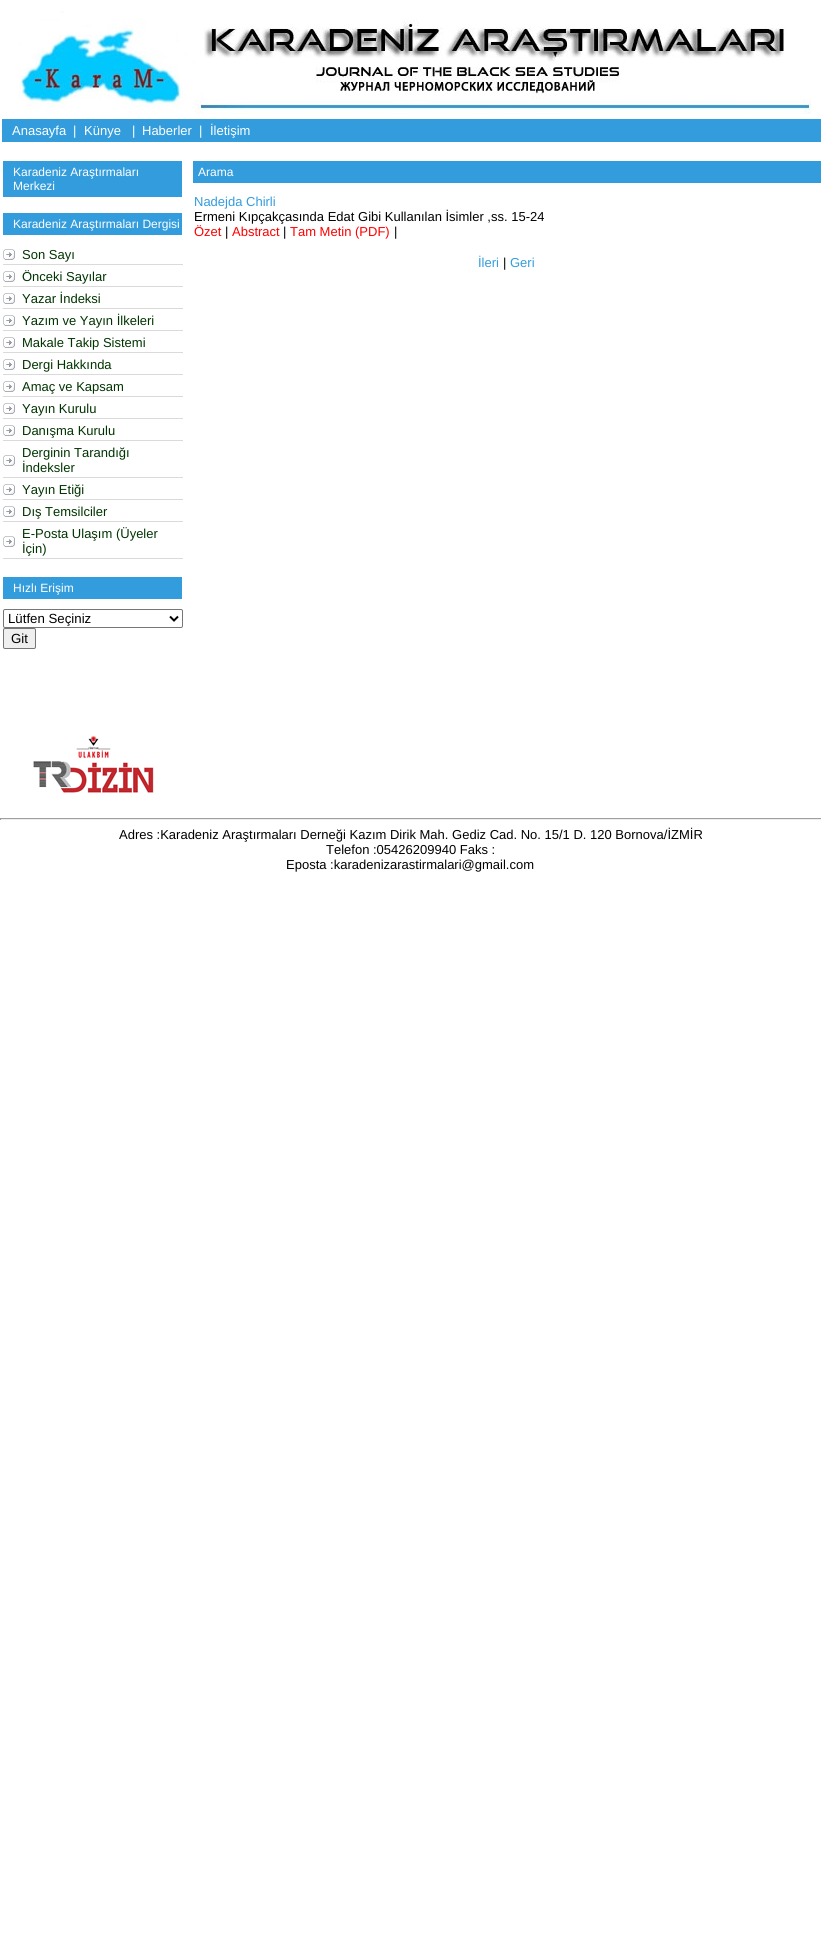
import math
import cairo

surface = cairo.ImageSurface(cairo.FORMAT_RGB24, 821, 1955)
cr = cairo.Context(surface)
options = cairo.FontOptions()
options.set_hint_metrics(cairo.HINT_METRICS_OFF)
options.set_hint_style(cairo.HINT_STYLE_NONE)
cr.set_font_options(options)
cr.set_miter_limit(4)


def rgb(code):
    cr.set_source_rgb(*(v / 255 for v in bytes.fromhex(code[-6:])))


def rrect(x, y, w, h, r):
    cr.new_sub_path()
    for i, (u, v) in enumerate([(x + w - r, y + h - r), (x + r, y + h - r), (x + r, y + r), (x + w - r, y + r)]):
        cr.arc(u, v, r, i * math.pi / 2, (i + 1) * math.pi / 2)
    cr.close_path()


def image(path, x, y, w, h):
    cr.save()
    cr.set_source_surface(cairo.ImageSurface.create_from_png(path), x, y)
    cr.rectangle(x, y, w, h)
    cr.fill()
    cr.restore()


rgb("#ffffff")
cr.paint()
image("img/1.png", 19, 11, 794, 103)
for x, y, w, h, color in [
    (2, 119, 819, 23, "#329cdc"),
    (3, 161, 179, 36, "#329cdc"),
    (3, 213, 179, 22, "#329cdc"),
]:
    rgb(color)
    cr.rectangle(x, y, w, h)
    cr.fill()
image("img/2.png", 3, 249, 12, 11)
rgb("#dadada")
cr.rectangle(3, 264, 180, 1)
cr.fill()
image("img/2.png", 3, 271, 12, 11)
cr.rectangle(3, 286, 180, 1)
cr.fill()
image("img/2.png", 3, 293, 12, 11)
cr.rectangle(3, 308, 180, 1)
cr.fill()
image("img/2.png", 3, 315, 12, 11)
cr.rectangle(3, 330, 180, 1)
cr.fill()
image("img/2.png", 3, 337, 12, 11)
cr.rectangle(3, 352, 180, 1)
cr.fill()
image("img/2.png", 3, 359, 12, 11)
cr.rectangle(3, 374, 180, 1)
cr.fill()
image("img/2.png", 3, 381, 12, 11)
cr.rectangle(3, 396, 180, 1)
cr.fill()
image("img/2.png", 3, 403, 12, 11)
cr.rectangle(3, 418, 180, 1)
cr.fill()
image("img/2.png", 3, 425, 12, 11)
cr.rectangle(3, 440, 180, 1)
cr.fill()
image("img/2.png", 3, 455, 12, 11)
cr.rectangle(3, 477, 180, 1)
cr.fill()
image("img/2.png", 3, 484, 12, 11)
cr.rectangle(3, 499, 180, 1)
cr.fill()
image("img/2.png", 3, 506, 12, 11)
cr.rectangle(3, 521, 180, 1)
cr.fill()
image("img/2.png", 3, 536, 12, 11)
cr.rectangle(3, 558, 180, 1)
cr.fill()
rgb("#329cdc")
cr.rectangle(3, 577, 179, 22)
cr.fill()
rrect(3.5, 609.5, 179, 18, 1.5)
rgb("#767676")
cr.set_line_width(1)
cr.stroke()
cr.new_path()
cr.move_to(170, 616.5)
cr.line_to(174, 620.5)
cr.line_to(178, 616.5)
rgb("#000000")
cr.set_line_width(2)
cr.stroke()
rgb("#efefef")
rrect(3.5, 628.5, 32, 20, 1.5)
cr.fill_preserve()
rgb("#767676")
cr.set_line_width(1)
cr.stroke()
image("img/3.png", 33, 735, 122, 58)
for x, y, w, h, color in [
    (193, 161, 628, 22, "#329cdc"),
    (0, 818, 821, 1, "#9f9f9f"),
    (0, 819, 821, 1, "#eeeeee"),
    (0, 818, 1, 2, "#9f9f9f"),
]:
    rgb(color)
    cr.rectangle(x, y, w, h)
    cr.fill()
cr.select_font_face("Liberation Sans")
cr.set_font_size(13)
rgb("#ffffff")
for x, y, s in [
    (12, 135, "Anasayfa"),
    (73, 135, "|"),
    (84, 135, "Künye"),
    (132, 135, "|"),
    (142, 135, "Haberler"),
    (199, 135, "|"),
    (210, 135, "İletişim"),
]:
    cr.move_to(x, y)
    cr.show_text(s)
cr.set_font_size(12)
for x, y, s in [
    (13, 176, "Karadeniz Araştırmaları"),
    (13, 190, "Merkezi"),
    (13, 228, "Karadeniz Araştırmaları Dergisi"),
]:
    cr.move_to(x, y)
    cr.show_text(s)
cr.set_font_size(13)
rgb("#003300")
for x, y, s in [
    (22, 259, "Son Sayı"),
    (22, 281, "Önceki Sayılar"),
    (22, 303, "Yazar İndeksi"),
    (22, 325, "Yazım ve Yayın İlkeleri"),
    (22, 347, "Makale Takip Sistemi"),
    (22, 369, "Dergi Hakkında"),
    (22, 391, "Amaç ve Kapsam"),
    (22, 413, "Yayın Kurulu"),
    (22, 435, "Danışma Kurulu"),
    (22, 457, "Derginin Tarandığı"),
    (22, 472, "İndeksler"),
    (22, 494, "Yayın Etiği"),
    (22, 516, "Dış Temsilciler"),
    (22, 538, "E-Posta Ulaşım (Üyeler"),
    (22, 553, "İçin)"),
]:
    cr.move_to(x, y)
    cr.show_text(s)
cr.set_font_size(12)
rgb("#ffffff")
cr.move_to(13, 592)
cr.show_text("Hızlı Erişim")
cr.set_font_size(13.25)
rgb("#000000")
cr.move_to(8, 623)
cr.show_text("Lütfen Seçiniz")
cr.move_to(11, 643)
cr.show_text("Git")
cr.set_font_size(12)
rgb("#ffffff")
cr.move_to(198, 176)
cr.show_text("Arama")
cr.set_font_size(13)
rgb("#329cdc")
cr.move_to(194, 206)
cr.show_text("Nadejda Chirli")
rgb("#000000")
cr.move_to(194, 221)
cr.show_text("Ermeni Kıpçakçasında Edat Gibi Kullanılan İsimler ,ss. 15-24")
rgb("#ff0000")
cr.move_to(194, 236)
cr.show_text("Özet")
rgb("#000000")
cr.move_to(225, 236)
cr.show_text("|")
rgb("#ff0000")
cr.move_to(232, 236)
cr.show_text("Abstract")
rgb("#000000")
cr.move_to(283, 236)
cr.show_text("|")
rgb("#ff0000")
cr.move_to(290, 236)
cr.show_text("Tam Metin (PDF)")
rgb("#000000")
cr.move_to(394, 236)
cr.show_text("|")
rgb("#329cdc")
cr.move_to(478, 267)
cr.show_text("İleri")
rgb("#000000")
cr.move_to(503, 267)
cr.show_text("|")
rgb("#329cdc")
cr.move_to(510, 267)
cr.show_text("Geri")
rgb("#000000")
for x, y, s in [
    (119, 839, "Adres :Karadeniz Araştırmaları Derneği Kazım Dirik Mah. Gediz Cad. No. 15/1 D. 120 Bornova/İZMİR"),
    (326, 854, "Telefon :05426209940 Faks :"),
    (286, 869, "Eposta :karadenizarastirmalari@gmail.com"),
]:
    cr.move_to(x, y)
    cr.show_text(s)
surface.write_to_png("page.png")
